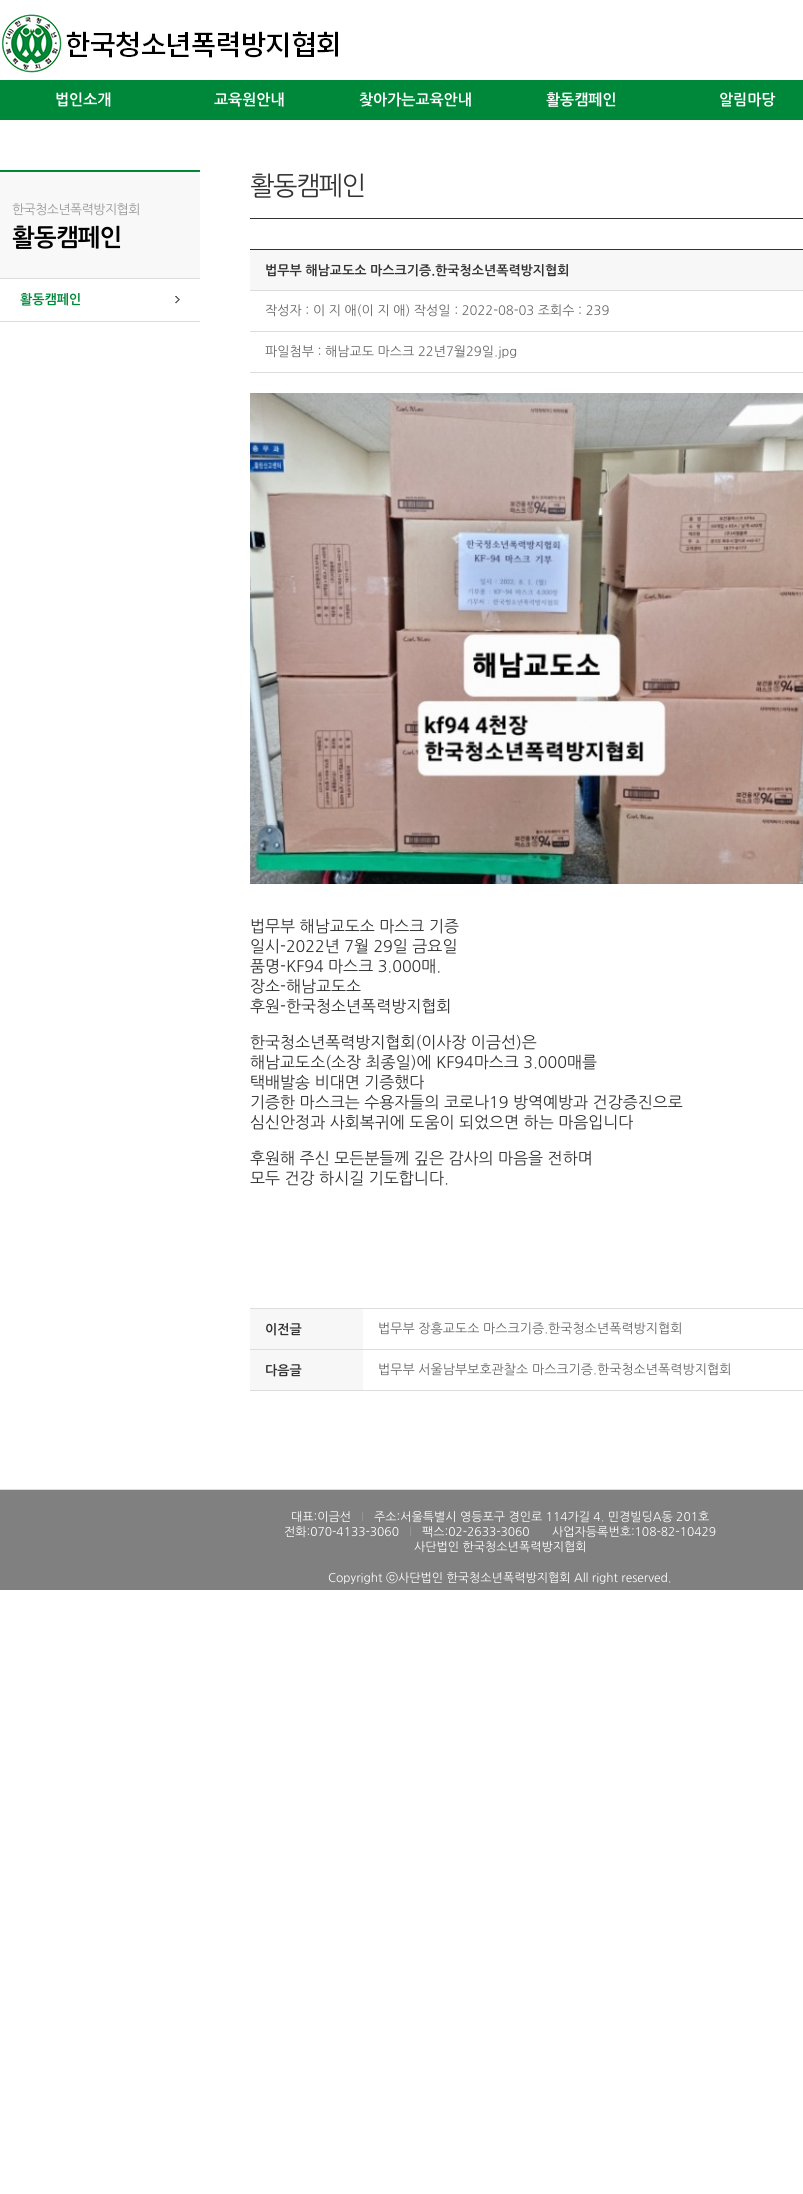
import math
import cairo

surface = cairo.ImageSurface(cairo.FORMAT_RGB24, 803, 2194)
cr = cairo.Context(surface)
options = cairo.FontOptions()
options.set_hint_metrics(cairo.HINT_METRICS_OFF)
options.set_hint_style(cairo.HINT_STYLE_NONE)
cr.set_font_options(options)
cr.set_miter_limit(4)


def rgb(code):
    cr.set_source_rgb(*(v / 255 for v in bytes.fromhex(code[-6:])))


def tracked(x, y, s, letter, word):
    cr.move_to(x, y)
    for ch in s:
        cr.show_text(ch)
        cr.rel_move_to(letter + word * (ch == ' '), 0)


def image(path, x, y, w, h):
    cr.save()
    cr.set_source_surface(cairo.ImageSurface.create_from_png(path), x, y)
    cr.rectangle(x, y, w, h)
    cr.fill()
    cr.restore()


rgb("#ffffff")
cr.paint()
image("img/1.png", 1, 14, 337, 59)
for x, y, w, h, color in [
    (0, 80, 803, 40, "#00883a"),
    (0, 172, 200, 106, "#f8f8f8"),
    (0, 170, 200, 2, "#00883a"),
    (0, 278, 200, 1, "#dddddd"),
    (0, 321, 200, 1, "#dddddd"),
]:
    rgb(color)
    cr.rectangle(x, y, w, h)
    cr.fill()
image("img/2.png", 175, 296, 5, 8)
for x, y, w, h, color in [
    (250, 218, 553, 1, "#333333"),
    (250, 249, 553, 1, "#333333"),
    (250, 250, 553, 40, "#f7f7f7"),
    (250, 290, 553, 1, "#dddddd"),
    (250, 331, 553, 1, "#dddddd"),
    (250, 372, 553, 1, "#dddddd"),
    (250, 1308, 553, 1, "#dddddd"),
]:
    rgb(color)
    cr.rectangle(x, y, w, h)
    cr.fill()
image("img/3.png", 250, 393, 553, 491)
for x, y, w, h, color in [
    (250, 1309, 113, 40, "#f7f7f7"),
    (250, 1349, 553, 1, "#dddddd"),
    (250, 1350, 113, 40, "#f7f7f7"),
    (250, 1390, 553, 1, "#dddddd"),
    (0, 1490, 803, 100, "#808080"),
    (0, 1489, 803, 1, "#dddddd"),
]:
    rgb(color)
    cr.rectangle(x, y, w, h)
    cr.fill()
cr.select_font_face("NanumGothic", cairo.FONT_SLANT_NORMAL, cairo.FONT_WEIGHT_BOLD)
cr.set_font_size(15)
rgb("#ffffff")
for x, y, s in [
    (55, 105, "법인소개"),
    (214, 105, "교육원안내"),
    (359, 105, "찾아가는교육안내"),
    (546, 105, "활동캠페인"),
    (719, 105, "알림마당"),
]:
    cr.move_to(x, y)
    cr.show_text(s)
cr.select_font_face("NanumGothic")
cr.set_font_size(13)
rgb("#999999")
tracked(12, 214, "한국청소년폭력방지협회", -0.6, 0)
cr.select_font_face("NanumGothic", cairo.FONT_SLANT_NORMAL, cairo.FONT_WEIGHT_BOLD)
cr.set_font_size(24)
rgb("#000000")
tracked(12, 246, "활동캠페인", -0.6, 0)
cr.set_font_size(13)
rgb("#00883a")
cr.move_to(20, 304)
cr.show_text("활동캠페인")
cr.select_font_face("NanumGothic")
cr.set_font_size(26)
rgb("#333333")
tracked(250, 195, "활동캠페인", -1.5, 0)
cr.select_font_face("NanumGothic", cairo.FONT_SLANT_NORMAL, cairo.FONT_WEIGHT_BOLD)
cr.set_font_size(13)
cr.move_to(265, 275)
cr.show_text("법무부 해남교도소 마스크기증.한국청소년폭력방지협회")
cr.select_font_face("NanumGothic")
rgb("#666666")
cr.move_to(265, 315)
cr.show_text("작성자 : 이 지 애(이 지 애) 작성일 : 2022-08-03 조회수 : 239")
cr.move_to(265, 356)
cr.show_text("파일첨부 : 해남교도 마스크 22년7월29일.jpg")
cr.set_font_size(16)
rgb("#333333")
for x, y, s in [
    (250, 932, "법무부 해남교도소 마스크 기증"),
    (250, 952, "일시-2022년 7월 29일 금요일"),
    (250, 972, "품명-KF94 마스크 3.000매."),
    (250, 992, "장소-해남교도소"),
    (250, 1012, "후원-한국청소년폭력방지협회"),
    (250, 1048, "한국청소년폭력방지협회(이사장 이금선)은"),
    (250, 1068, "해남교도소(소장 최종일)에 KF94마스크 3.000매를"),
    (250, 1088, "택배발송 비대면 기증했다"),
    (250, 1108, "기증한 마스크는 수용자들의 코로나19 방역예방과 건강증진으로"),
    (250, 1128, "심신안정과 사회복귀에 도움이 되었으면 하는 마음입니다"),
    (250, 1164, "후원해 주신 모든분들께 깊은 감사의 마음을 전하며"),
    (250, 1184, "모두 건강 하시길 기도합니다."),
]:
    cr.move_to(x, y)
    cr.show_text(s)
cr.select_font_face("NanumGothic", cairo.FONT_SLANT_NORMAL, cairo.FONT_WEIGHT_BOLD)
cr.set_font_size(13)
cr.move_to(265, 1334)
cr.show_text("이전글")
cr.select_font_face("NanumGothic")
rgb("#666666")
cr.move_to(378, 1333)
cr.show_text("법무부 장흥교도소 마스크기증.한국청소년폭력방지협회")
cr.select_font_face("NanumGothic", cairo.FONT_SLANT_NORMAL, cairo.FONT_WEIGHT_BOLD)
rgb("#333333")
cr.move_to(265, 1375)
cr.show_text("다음글")
cr.select_font_face("NanumGothic")
rgb("#666666")
cr.move_to(378, 1374)
cr.show_text("법무부 서울남부보호관찰소 마스크기증.한국청소년폭력방지협회")
cr.set_font_size(12)
rgb("#ffffff")
cr.move_to(291, 1521)
cr.show_text("대표:이금선")
rgb("#999999")
cr.move_to(361, 1521)
cr.show_text("l")
rgb("#ffffff")
cr.move_to(374, 1521)
cr.show_text("주소:서울특별시 영등포구 경인로 114가길 4. 민경빌딩A동 201호")
cr.move_to(284, 1536)
cr.show_text("전화:070-4133-3060")
rgb("#999999")
cr.move_to(409, 1536)
cr.show_text("l")
rgb("#ffffff")
for x, y, s in [
    (422, 1536, "팩스:02-2633-3060"),
    (552, 1536, "사업자등록번호:108-82-10429"),
    (414, 1551, "사단법인 한국청소년폭력방지협회"),
    (328, 1582, "Copyright"),
]:
    cr.move_to(x, y)
    cr.show_text(s)
cr.select_font_face("WenQuanYi Zen Hei Medium")
cr.move_to(386, 1582)
cr.show_text("ⓒ")
cr.select_font_face("NanumGothic")
cr.move_to(398, 1582)
cr.show_text("사단법인 한국청소년폭력방지협회 All right reserved.")
surface.write_to_png("page.png")
